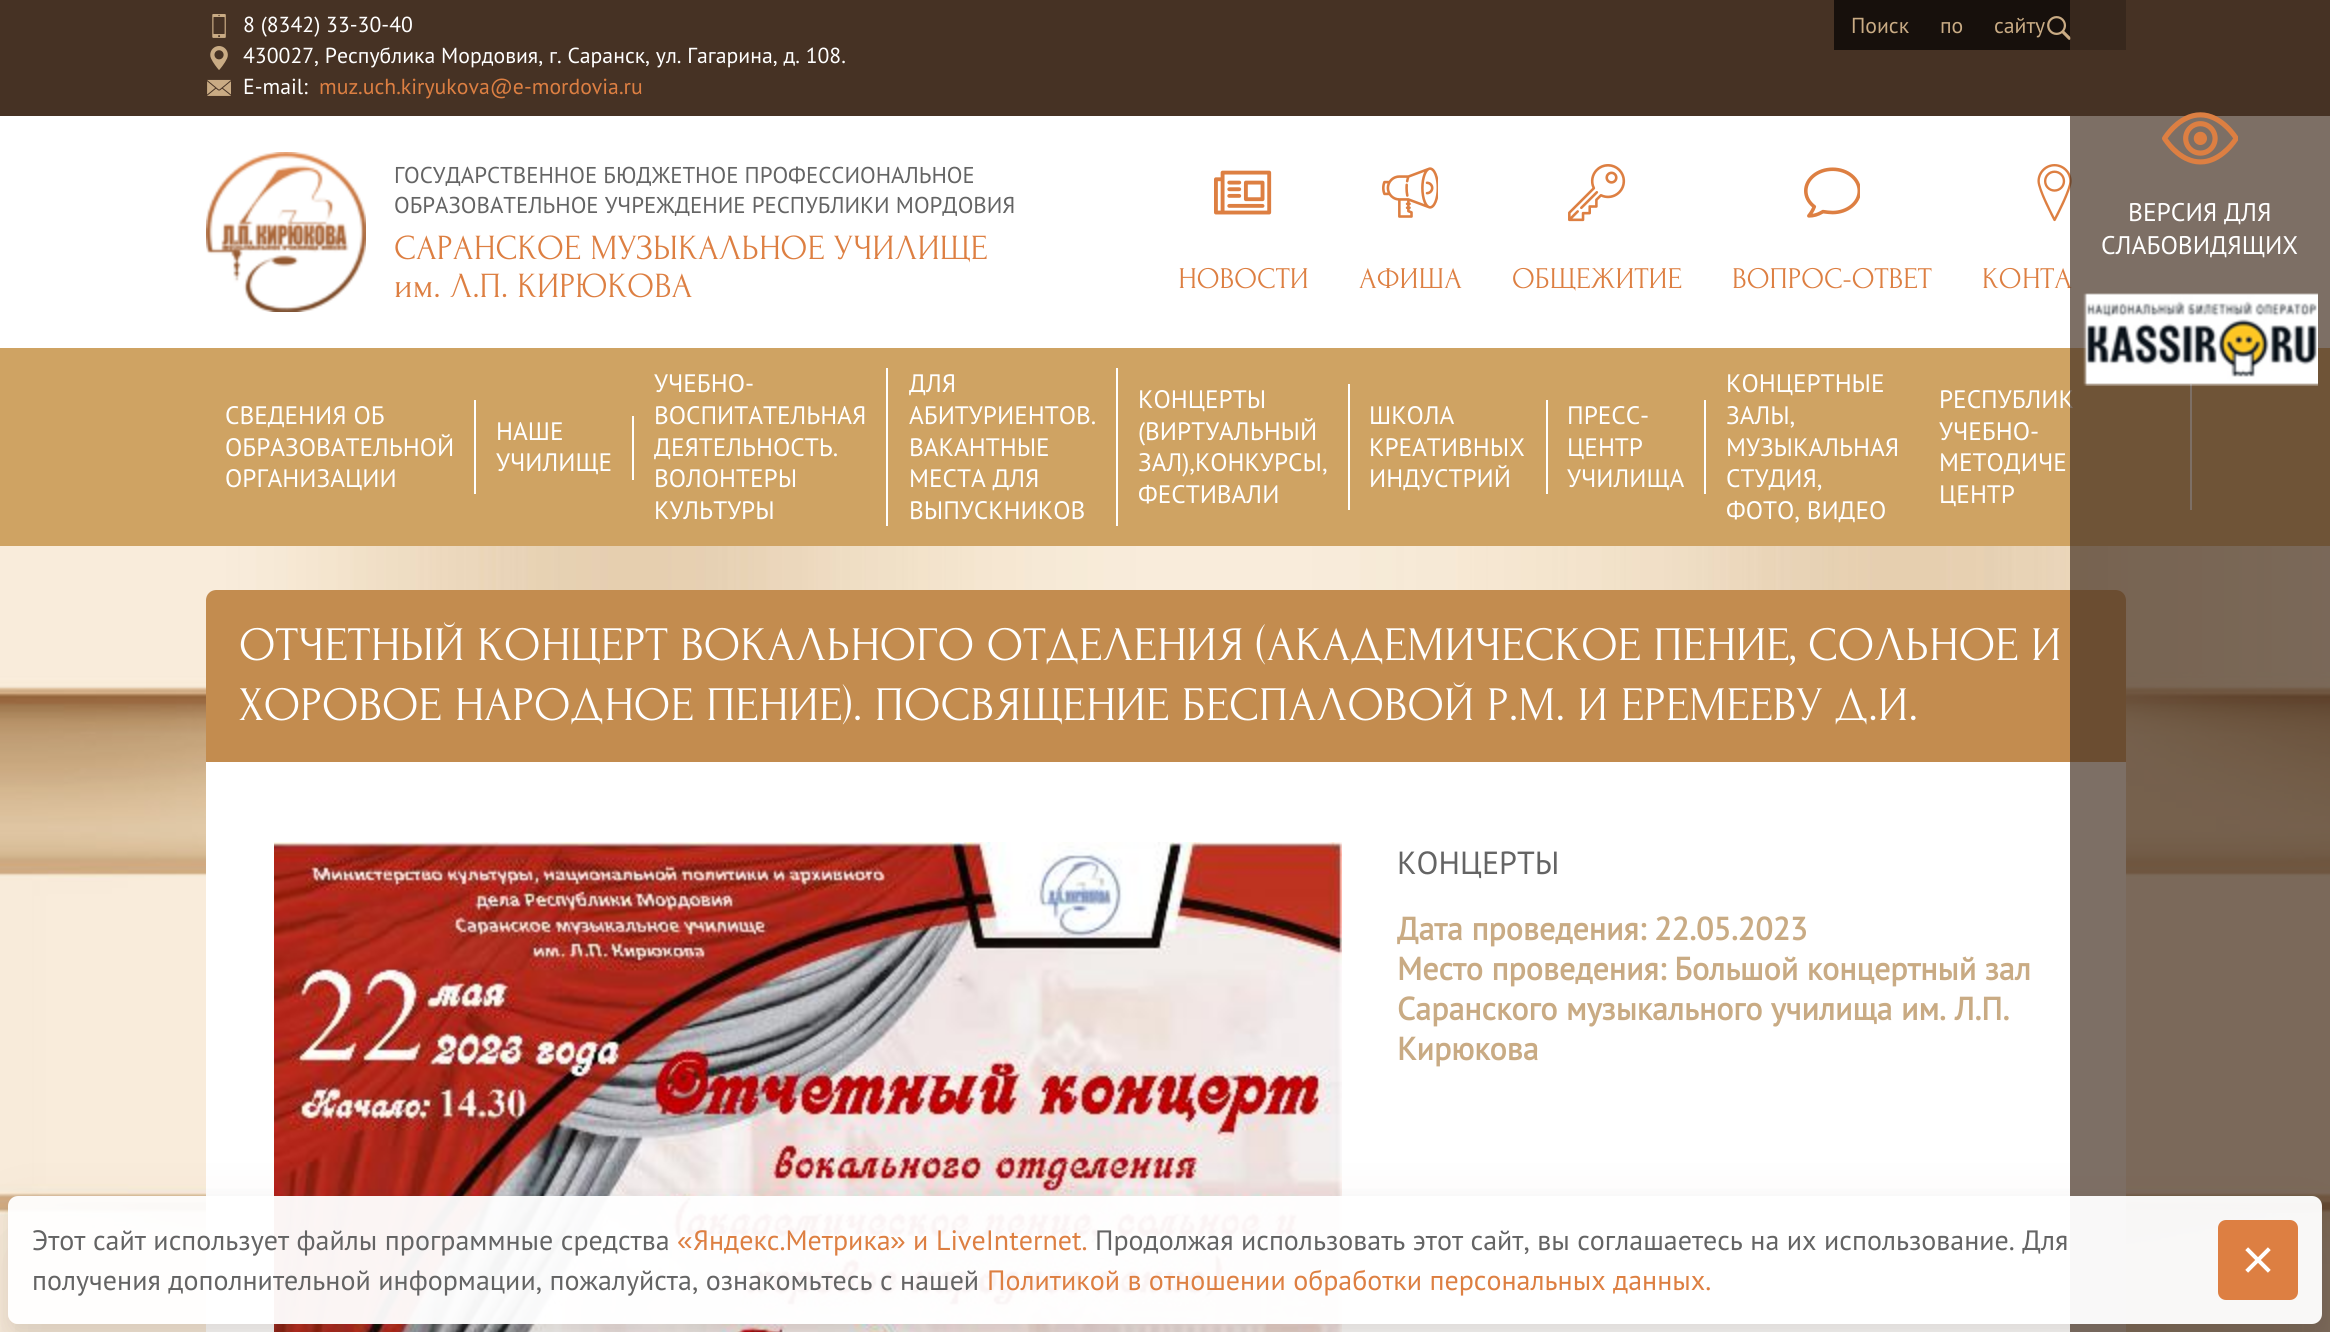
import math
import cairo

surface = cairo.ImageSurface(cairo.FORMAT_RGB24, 2330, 1332)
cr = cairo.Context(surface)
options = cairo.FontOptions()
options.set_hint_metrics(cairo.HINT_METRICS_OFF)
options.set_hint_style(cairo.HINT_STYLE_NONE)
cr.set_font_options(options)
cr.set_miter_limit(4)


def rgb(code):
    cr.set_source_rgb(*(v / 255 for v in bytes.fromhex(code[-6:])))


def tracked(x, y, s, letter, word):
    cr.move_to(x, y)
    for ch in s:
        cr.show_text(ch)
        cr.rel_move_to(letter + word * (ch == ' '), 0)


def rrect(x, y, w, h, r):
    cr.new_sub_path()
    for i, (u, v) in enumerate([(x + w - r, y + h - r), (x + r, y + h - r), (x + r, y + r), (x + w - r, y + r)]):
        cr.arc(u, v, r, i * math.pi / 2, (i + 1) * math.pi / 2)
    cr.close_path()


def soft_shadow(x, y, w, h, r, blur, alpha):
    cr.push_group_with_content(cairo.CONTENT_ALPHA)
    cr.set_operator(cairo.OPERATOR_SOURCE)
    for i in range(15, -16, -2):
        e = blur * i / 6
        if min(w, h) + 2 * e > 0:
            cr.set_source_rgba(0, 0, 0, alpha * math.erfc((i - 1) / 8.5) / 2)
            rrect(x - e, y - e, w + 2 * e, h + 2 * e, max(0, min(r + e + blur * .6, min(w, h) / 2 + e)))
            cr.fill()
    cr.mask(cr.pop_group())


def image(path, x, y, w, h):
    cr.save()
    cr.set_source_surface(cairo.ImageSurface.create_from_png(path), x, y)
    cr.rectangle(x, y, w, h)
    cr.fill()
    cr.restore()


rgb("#ffffff")
cr.paint()
image("img/1.png", 0, 546, 2330, 786)
rgb("#463224")
cr.rectangle(0, 0, 2330, 116)
cr.fill()
image("img/2.png", 212, 14, 14, 24)
image("img/3.png", 210, 46, 18, 24)
image("img/4.png", 207, 79, 24, 17)
rgb("#17100c")
cr.rectangle(1834, 0, 292, 50)
cr.fill()
image("img/5.png", 2047, 16, 24, 24)
image("img/6.png", 206, 152, 160, 160)
image("img/7.png", 1214, 170, 58, 45)
image("img/8.png", 1382, 167, 56, 51)
image("img/9.png", 1568, 164, 58, 58)
image("img/10.png", 1804, 167, 56, 51)
image("img/11.png", 2037, 164, 35, 58)
for x, y, w, h, color in [
    (0, 348, 2330, 198, "#cfa363"),
    (474, 400, 2, 94, "#ffffff"),
    (632, 416, 2, 64, "#ffffff"),
    (886, 368, 2, 158, "#ffffff"),
    (1116, 368, 2, 158, "#ffffff"),
    (1348, 384, 2, 126, "#ffffff"),
    (1546, 400, 2, 94, "#ffffff"),
    (1704, 400, 2, 94, "#ffffff"),
    (2190, 384, 2, 126, "#ffffff"),
]:
    rgb(color)
    cr.rectangle(x, y, w, h)
    cr.fill()
rrect(206, 590, 1920, 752, 10)
cr.fill()
rgb("#c38c4f")
cr.new_path()
cr.move_to(216, 590)
cr.line_to(2116, 590)
cr.curve_to(2121.5, 590, 2126, 594.5, 2126, 600)
cr.line_to(2126, 762)
cr.line_to(206, 762)
cr.line_to(206, 600)
cr.curve_to(206, 594.5, 210.5, 590, 216, 590)
cr.close_path()
cr.fill()
image("img/14.png", 274, 842, 1068, 490)
cr.select_font_face("PT Sans")
cr.set_font_size(21.75)
rgb("#ffffff")
for x, y, s in [
    (243, 32, "8 (8342) 33-30-40"),
    (243, 63, "430027, Республика Мордовия, г. Саранск, ул. Гагарина, д. 108."),
    (243, 94, "E-mail:"),
]:
    cr.move_to(x, y)
    cr.show_text(s)
rgb("#dd7f42")
cr.move_to(319, 94)
cr.show_text("muz.uch.kiryukova@e-mordovia.ru")
rgb("#c9ab84")
tracked(1851, 33, "Поиск по сайту", 0, 25)
cr.set_font_size(22.9)
rgb("#646464")
cr.move_to(394, 183)
cr.show_text("ГОСУДАРСТВЕННОЕ БЮДЖЕТНОЕ ПРОФЕССИОНАЛЬНОЕ")
cr.move_to(394, 213)
cr.show_text("ОБРАЗОВАТЕЛЬНОЕ УЧРЕЖДЕНИЕ РЕСПУБЛИКИ МОРДОВИЯ")
cr.select_font_face("Forum")
cr.set_font_size(35.25)
rgb("#dd7f42")
cr.move_to(394, 259)
cr.show_text("САРАНСКОЕ МУЗЫКАЛЬНОЕ УЧИЛИЩЕ")
cr.move_to(394, 297)
cr.show_text("им. Л.П. КИРЮКОВА")
cr.set_font_size(30)
for x, y, s in [
    (1178, 288, "НОВОСТИ"),
    (1359, 288, "АФИША"),
    (1512, 288, "ОБЩЕЖИТИЕ"),
    (1732, 288, "ВОПРОС-ОТВЕТ"),
    (1982, 288, "КОНТА"),
]:
    cr.move_to(x, y)
    cr.show_text(s)
cr.select_font_face("PT Sans")
cr.set_font_size(25.25)
rgb("#ffffff")
for x, y, s in [
    (225, 424, "СВЕДЕНИЯ ОБ"),
    (225, 456, "ОБРАЗОВАТЕЛЬНОЙ"),
    (225, 487, "ОРГАНИЗАЦИИ"),
    (496, 440, "НАШЕ"),
    (496, 471, "УЧИЛИЩЕ"),
    (654, 392, "УЧЕБНО-"),
    (654, 424, "ВОСПИТАТЕЛЬНАЯ"),
    (654, 456, "ДЕЯТЕЛЬНОСТЬ."),
    (654, 487, "ВОЛОНТЕРЫ"),
    (654, 519, "КУЛЬТУРЫ"),
    (909, 392, "ДЛЯ"),
    (909, 424, "АБИТУРИЕНТОВ."),
    (909, 456, "ВАКАНТНЫЕ"),
    (909, 487, "МЕСТА ДЛЯ"),
    (909, 519, "ВЫПУСКНИКОВ"),
    (1138, 408, "КОНЦЕРТЫ"),
    (1138, 440, "(ВИРТУАЛЬНЫЙ"),
    (1138, 471, "ЗАЛ),КОНКУРСЫ,"),
    (1138, 503, "ФЕСТИВАЛИ"),
    (1369, 424, "ШКОЛА"),
    (1369, 456, "КРЕАТИВНЫХ"),
    (1369, 487, "ИНДУСТРИЙ"),
    (1567, 424, "ПРЕСС-"),
    (1567, 456, "ЦЕНТР"),
    (1567, 487, "УЧИЛИЩА"),
    (1726, 392, "КОНЦЕРТНЫЕ"),
    (1726, 424, "ЗАЛЫ,"),
    (1726, 456, "МУЗЫКАЛЬНАЯ"),
    (1726, 487, "СТУДИЯ,"),
    (1726, 519, "ФОТО, ВИДЕО"),
    (1939, 408, "РЕСПУБЛИК"),
    (1939, 440, "УЧЕБНО-"),
    (1939, 471, "МЕТОДИЧЕ"),
    (1939, 503, "ЦЕНТР"),
]:
    cr.move_to(x, y)
    cr.show_text(s)
cr.set_source_rgba(0.275, 0.196, 0.145, 0.7)
cr.rectangle(2070, 0, 260, 1332)
cr.fill()
image("img/12.png", 2162, 112, 76, 53)
cr.set_font_size(25.5)
rgb("#ffffff")
cr.move_to(2128, 221)
cr.show_text("ВЕРСИЯ ДЛЯ")
cr.move_to(2101, 254)
cr.show_text("СЛАБОВИДЯЩИХ")
image("img/13.png", 2083, 293, 235, 93)
cr.select_font_face("Forum")
cr.set_font_size(48)
cr.move_to(239, 660)
cr.show_text("ОТЧЕТНЫЙ КОНЦЕРТ ВОКАЛЬНОГО ОТДЕЛЕНИЯ (АКАДЕМИЧЕСКОЕ ПЕНИЕ, СОЛЬНОЕ И")
cr.move_to(239, 720)
cr.show_text("ХОРОВОЕ НАРОДНОЕ ПЕНИЕ). ПОСВЯЩЕНИЕ БЕСПАЛОВОЙ Р.М. И ЕРЕМЕЕВУ Д.И.")
cr.select_font_face("PT Sans")
cr.set_font_size(32)
rgb("#646464")
cr.move_to(1397, 874)
cr.show_text("КОНЦЕРТЫ")
cr.select_font_face("PT Sans", cairo.FONT_SLANT_NORMAL, cairo.FONT_WEIGHT_BOLD)
rgb("#c9ab84")
for x, y, s in [
    (1397, 940, "Дата проведения: 22.05.2023"),
    (1397, 980, "Место проведения: Большой концертный зал"),
    (1397, 1020, "Саранского музыкального училища им. Л.П."),
    (1397, 1060, "Кирюкова"),
]:
    cr.move_to(x, y)
    cr.show_text(s)
cr.save()
cr.set_fill_rule(cairo.FILL_RULE_EVEN_ODD)
cr.new_path()
cr.move_to(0, 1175)
cr.line_to(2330, 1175)
cr.line_to(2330, 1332)
cr.line_to(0, 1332)
cr.close_path()
cr.move_to(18, 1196)
cr.line_to(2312, 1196)
cr.curve_to(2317.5, 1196, 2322, 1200.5, 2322, 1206)
cr.line_to(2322, 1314)
cr.curve_to(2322, 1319.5, 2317.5, 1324, 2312, 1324)
cr.line_to(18, 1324)
cr.curve_to(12.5, 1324, 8, 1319.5, 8, 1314)
cr.line_to(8, 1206)
cr.curve_to(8, 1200.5, 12.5, 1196, 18, 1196)
cr.close_path()
cr.clip()
rgb("#463224")
soft_shadow(8, 1206, 2314, 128, 10, 10, 0.1)
cr.restore()
cr.save()
cr.set_fill_rule(cairo.FILL_RULE_EVEN_ODD)
cr.new_path()
cr.move_to(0, 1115)
cr.line_to(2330, 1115)
cr.line_to(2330, 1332)
cr.line_to(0, 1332)
cr.close_path()
cr.move_to(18, 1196)
cr.line_to(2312, 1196)
cr.curve_to(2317.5, 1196, 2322, 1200.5, 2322, 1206)
cr.line_to(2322, 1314)
cr.curve_to(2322, 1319.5, 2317.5, 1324, 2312, 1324)
cr.line_to(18, 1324)
cr.curve_to(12.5, 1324, 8, 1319.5, 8, 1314)
cr.line_to(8, 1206)
cr.curve_to(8, 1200.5, 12.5, 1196, 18, 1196)
cr.close_path()
cr.clip()
rgb("#463224")
soft_shadow(8, 1236, 2314, 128, 10, 40, 0.1)
cr.restore()
cr.set_source_rgba(1, 1, 1, 0.95)
rrect(8, 1196, 2314, 128, 10)
cr.fill()
cr.select_font_face("PT Sans")
cr.set_font_size(28)
rgb("#646464")
cr.move_to(32, 1250)
cr.show_text("Этот сайт использует файлы программные средства")
cr.select_font_face("Liberation Sans")
rgb("#dd7f42")
cr.move_to(677, 1250)
cr.show_text("«")
cr.select_font_face("PT Sans")
cr.move_to(693, 1250)
cr.show_text("Яндекс.Метрика")
cr.select_font_face("Liberation Sans")
cr.move_to(890, 1250)
cr.show_text("»")
cr.select_font_face("PT Sans")
cr.move_to(913, 1250)
cr.show_text("и")
cr.move_to(936, 1250)
cr.show_text("LiveInternet.")
rgb("#646464")
cr.move_to(1095, 1250)
cr.show_text("Продолжая использовать этот сайт, вы соглашаетесь на их использование. Для")
cr.move_to(32, 1290)
cr.show_text("получения дополнительной информации, пожалуйста, ознакомьтесь с нашей")
rgb("#dd7f42")
cr.move_to(987, 1290)
cr.show_text("Политикой в отношении обработки персональных данных.")
rrect(2218, 1220, 80, 80, 8)
cr.fill()
image("img/15.png", 2245, 1247, 26, 26)
surface.write_to_png("page.png")
